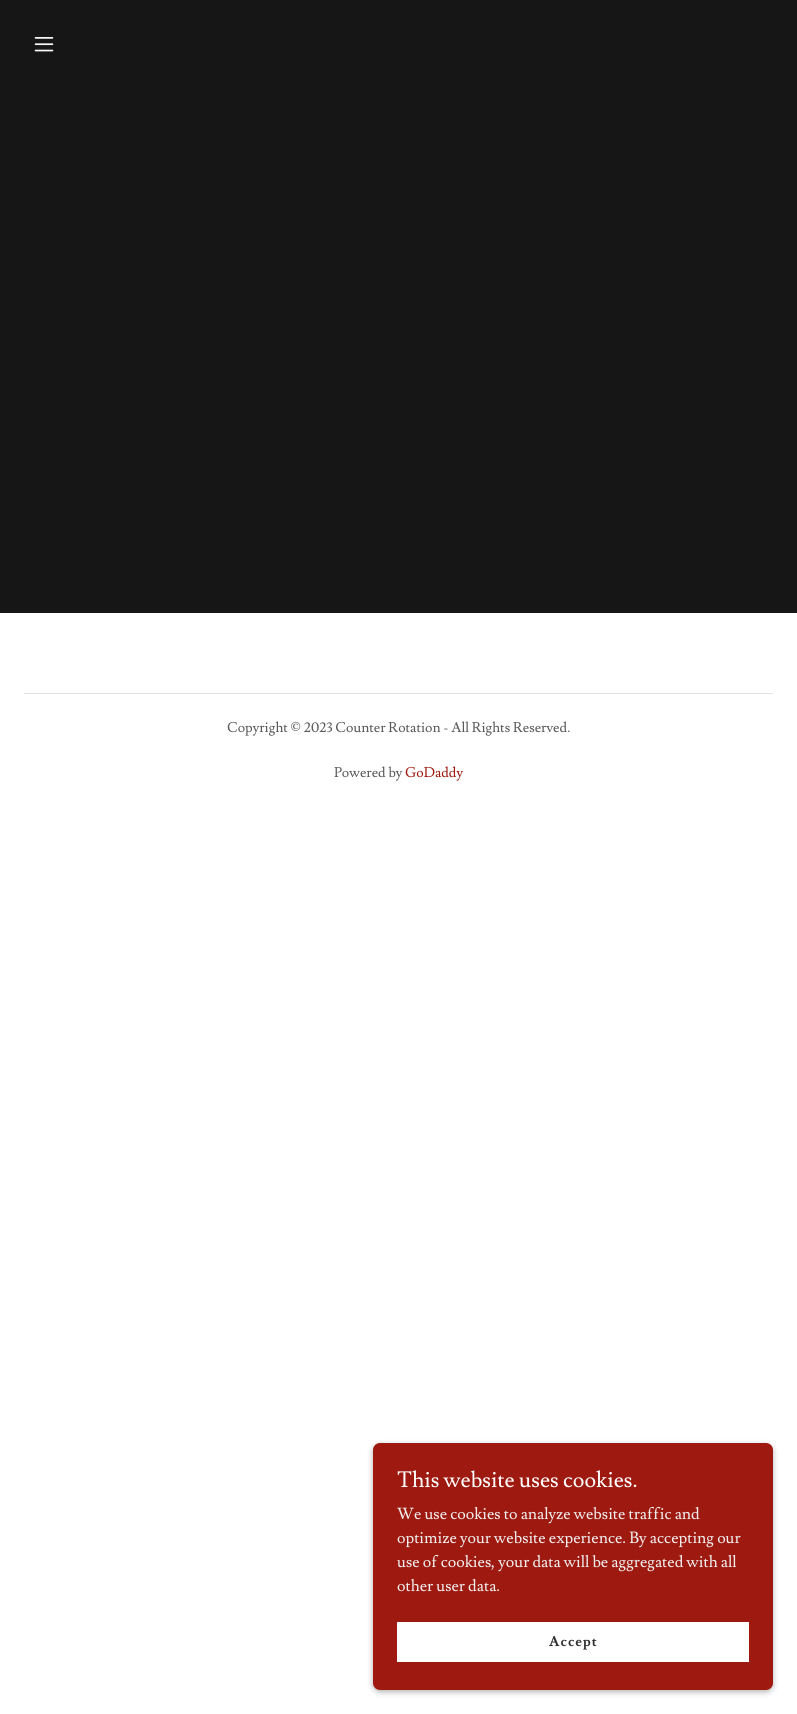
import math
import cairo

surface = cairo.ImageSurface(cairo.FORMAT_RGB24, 797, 1714)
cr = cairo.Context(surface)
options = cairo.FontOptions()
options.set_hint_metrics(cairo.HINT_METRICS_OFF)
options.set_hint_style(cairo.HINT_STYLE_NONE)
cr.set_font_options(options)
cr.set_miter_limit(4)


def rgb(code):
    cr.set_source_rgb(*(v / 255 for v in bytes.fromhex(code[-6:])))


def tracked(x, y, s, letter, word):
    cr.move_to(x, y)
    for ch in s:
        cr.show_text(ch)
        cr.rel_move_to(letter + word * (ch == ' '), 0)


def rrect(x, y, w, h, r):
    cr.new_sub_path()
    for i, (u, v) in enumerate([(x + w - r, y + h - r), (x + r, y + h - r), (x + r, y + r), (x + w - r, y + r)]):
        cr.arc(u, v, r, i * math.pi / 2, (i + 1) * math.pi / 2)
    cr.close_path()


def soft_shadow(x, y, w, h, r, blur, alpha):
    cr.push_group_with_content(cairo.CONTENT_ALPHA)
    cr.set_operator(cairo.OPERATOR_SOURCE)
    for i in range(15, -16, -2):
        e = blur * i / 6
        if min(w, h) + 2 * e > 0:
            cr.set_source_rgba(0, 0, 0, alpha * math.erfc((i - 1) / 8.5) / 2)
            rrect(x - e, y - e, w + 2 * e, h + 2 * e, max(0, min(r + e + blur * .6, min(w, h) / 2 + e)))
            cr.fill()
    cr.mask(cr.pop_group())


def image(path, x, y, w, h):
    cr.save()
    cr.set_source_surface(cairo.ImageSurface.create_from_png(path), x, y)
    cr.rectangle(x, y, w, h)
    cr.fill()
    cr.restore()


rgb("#ffffff")
cr.paint()
rgb("#161616")
cr.rectangle(0, 0, 797, 613)
cr.fill()
image("img/1.png", 34, 37, 20, 15)
rgb("#e2e2e2")
cr.rectangle(24, 693, 749, 1)
cr.fill()
rgb("#000000")
soft_shadow(373, 1445, 400, 247, 7, 3, 0.3)
rgb("#9e1a10")
rrect(373, 1443, 400, 247, 7)
cr.fill()
rgb("#ffffff")
cr.rectangle(397, 1622, 352, 40)
cr.fill()
cr.select_font_face("Lusitana")
cr.set_font_size(14)
rgb("#595959")
cr.move_to(227, 732)
cr.show_text("Copyright © 2023 Counter Rotation - All Rights Reserved.")
cr.move_to(334, 777)
cr.show_text("Powered by")
rgb("#9e1a10")
cr.move_to(405, 777)
cr.show_text("GoDaddy")
cr.set_font_size(22)
rgb("#ffffff")
cr.move_to(397, 1487)
cr.show_text("This website uses cookies.")
cr.set_font_size(16)
rgb("#efeeee")
for x, y, s in [
    (397, 1519, "We use cookies to analyze website traffic and"),
    (397, 1543, "optimize your website experience. By accepting our"),
    (397, 1567, "use of cookies, your data will be aggregated with all"),
    (397, 1591, "other user data."),
]:
    cr.move_to(x, y)
    cr.show_text(s)
cr.select_font_face("Lusitana", cairo.FONT_SLANT_NORMAL, cairo.FONT_WEIGHT_BOLD)
cr.set_font_size(14)
rgb("#303030")
tracked(549, 1646, "Accept", 1, 0)
surface.write_to_png("page.png")
